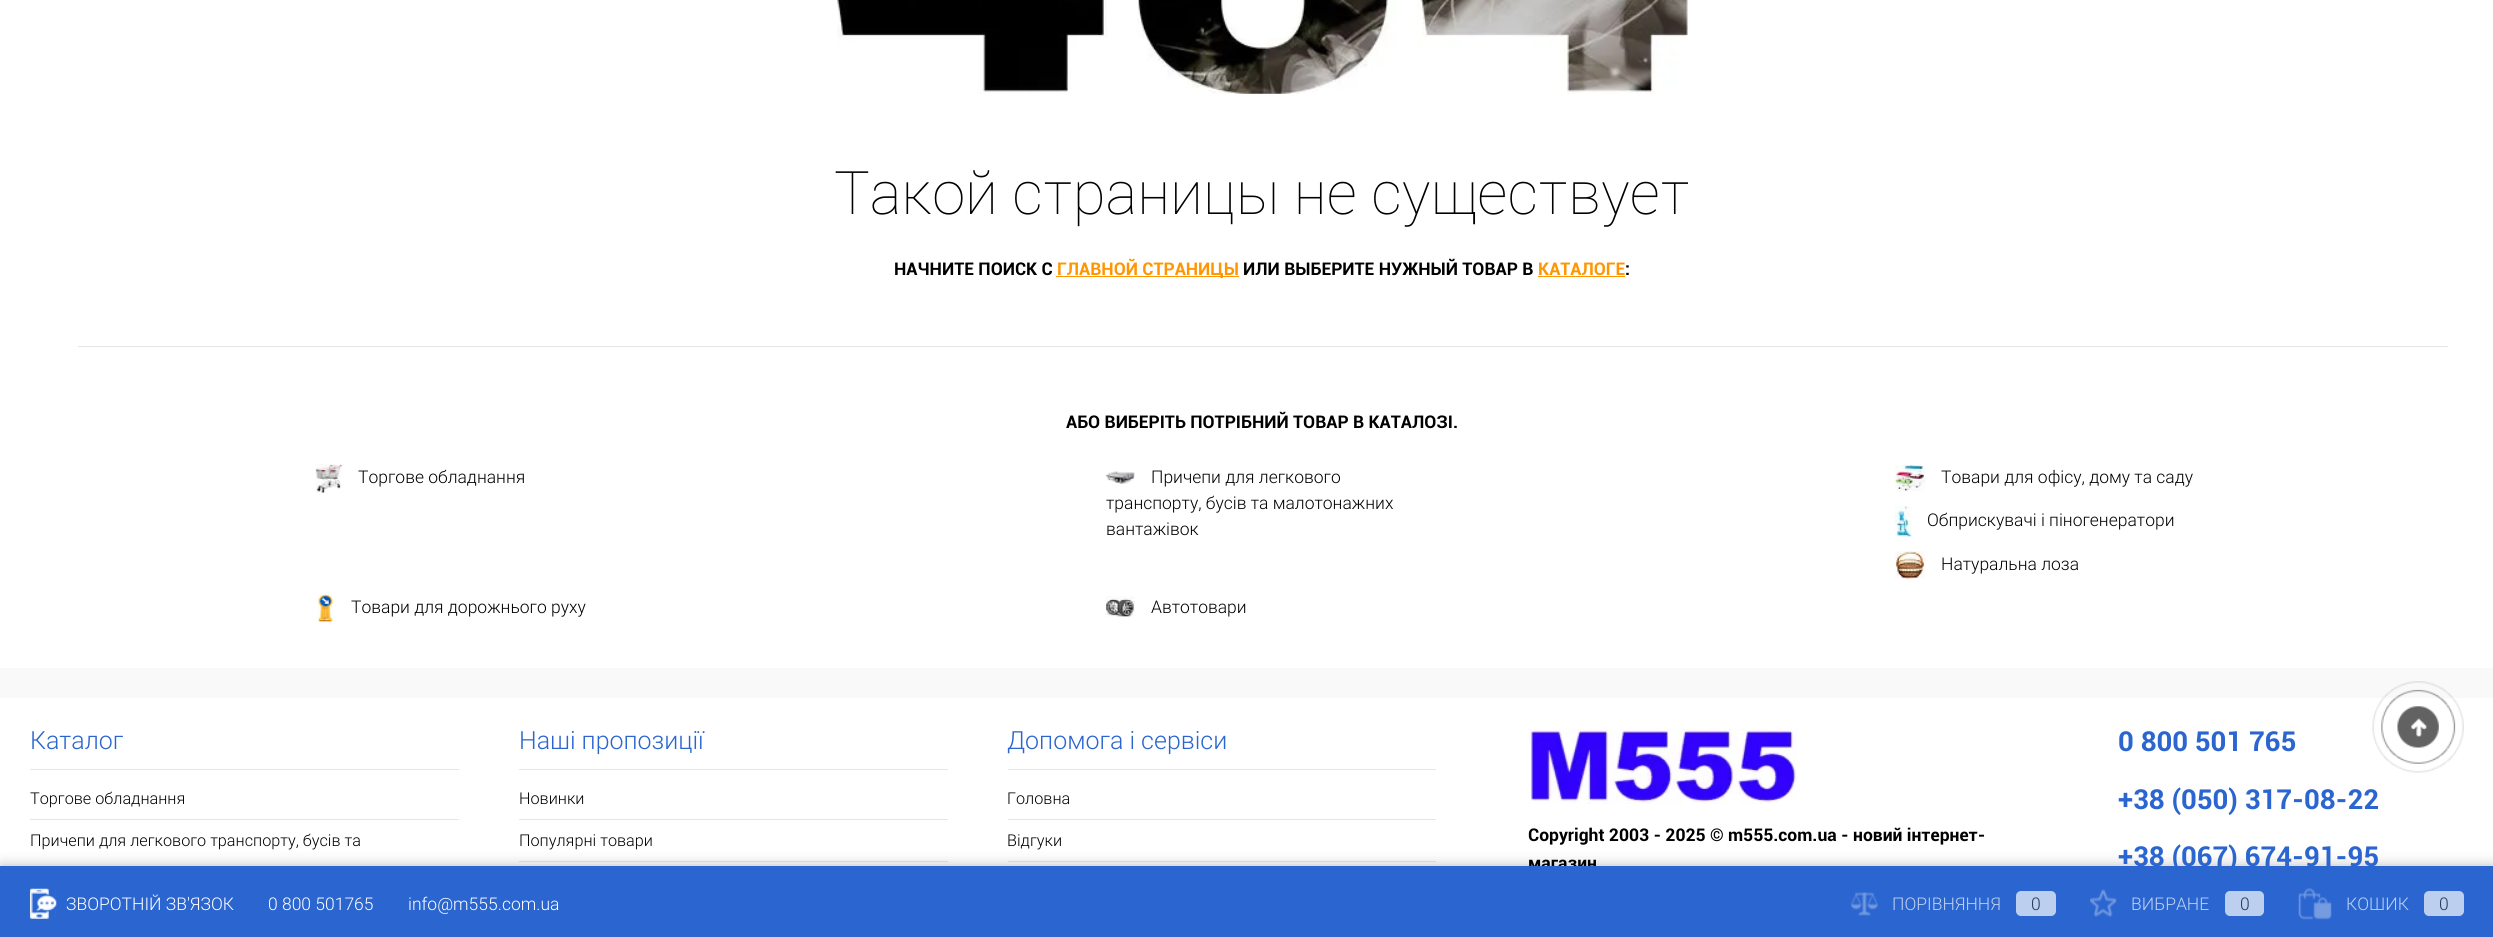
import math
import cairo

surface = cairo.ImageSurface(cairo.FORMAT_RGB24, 2493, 937)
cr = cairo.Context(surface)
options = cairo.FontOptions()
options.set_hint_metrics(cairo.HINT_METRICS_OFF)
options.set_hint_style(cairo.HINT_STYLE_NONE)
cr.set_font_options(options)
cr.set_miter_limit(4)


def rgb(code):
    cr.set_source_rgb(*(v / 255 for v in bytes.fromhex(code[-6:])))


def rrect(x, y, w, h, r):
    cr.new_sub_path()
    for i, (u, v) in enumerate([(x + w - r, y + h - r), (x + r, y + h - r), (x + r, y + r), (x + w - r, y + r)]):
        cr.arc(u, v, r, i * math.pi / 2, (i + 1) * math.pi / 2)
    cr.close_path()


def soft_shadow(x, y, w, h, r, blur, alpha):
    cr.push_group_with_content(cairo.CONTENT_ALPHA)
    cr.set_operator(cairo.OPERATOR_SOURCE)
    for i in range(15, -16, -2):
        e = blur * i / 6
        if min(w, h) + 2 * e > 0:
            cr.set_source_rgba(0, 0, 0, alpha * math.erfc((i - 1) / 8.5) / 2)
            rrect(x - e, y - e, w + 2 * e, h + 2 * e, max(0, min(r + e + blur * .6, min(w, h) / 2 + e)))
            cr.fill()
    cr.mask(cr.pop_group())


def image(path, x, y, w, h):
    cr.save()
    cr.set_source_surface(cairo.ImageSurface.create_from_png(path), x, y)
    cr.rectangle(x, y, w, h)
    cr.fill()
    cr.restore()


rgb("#ffffff")
cr.paint()
image("img/1.png", 837, 0, 851, 94)
for x, y, w, h, color in [
    (1056, 276, 183, 1, "#ff9601"),
    (1538, 276, 87, 1, "#ff9601"),
    (78, 346, 2370, 1, "#e5e5e5"),
]:
    rgb(color)
    cr.rectangle(x, y, w, h)
    cr.fill()
image("img/2.png", 315, 464, 28, 29)
image("img/3.png", 1105, 471, 30, 13)
image("img/4.png", 1895, 465, 30, 27)
image("img/5.png", 1895, 506, 17, 31)
image("img/6.png", 1895, 551, 30, 28)
image("img/7.png", 318, 594, 15, 29)
image("img/8.png", 1105, 596, 30, 21)
for x, y, w, h, color in [
    (0, 668, 2493, 30, "#f9f9f9"),
    (30, 769, 429, 1, "#e6e6e6"),
    (30, 819, 429, 1, "#e6e6e6"),
    (519, 769, 429, 1, "#e6e6e6"),
    (519, 819, 429, 1, "#e6e6e6"),
    (519, 861, 429, 1, "#e6e6e6"),
    (1008, 769, 428, 1, "#e6e6e6"),
    (1008, 819, 428, 1, "#e6e6e6"),
    (1008, 861, 428, 1, "#e6e6e6"),
]:
    rgb(color)
    cr.rectangle(x, y, w, h)
    cr.fill()
image("img/9.png", 1527, 728, 271, 76)
rgb("#000000")
soft_shadow(1, 868, 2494, 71, 0, 7.5, 0.35)
image("img/14.png", 2372, 681, 92, 92)
cr.select_font_face("Roboto Thin")
cr.set_font_size(60)
rgb("#000000")
cr.move_to(834, 214)
cr.show_text("Такой страницы не существует")
cr.select_font_face("Roboto", cairo.FONT_SLANT_NORMAL, cairo.FONT_WEIGHT_BOLD)
cr.set_font_size(17.5)
cr.move_to(894, 275)
cr.show_text("НАЧНИТЕ ПОИСК С")
rgb("#ff9601")
cr.move_to(1057, 275)
cr.show_text("ГЛАВНОЙ СТРАНИЦЫ")
rgb("#000000")
cr.move_to(1243, 275)
cr.show_text("ИЛИ ВЫБЕРИТЕ НУЖНЫЙ ТОВАР В")
rgb("#ff9601")
cr.move_to(1538, 275)
cr.show_text("КАТАЛОГЕ")
rgb("#000000")
cr.move_to(1625, 275)
cr.show_text(":")
cr.move_to(1066, 428)
cr.show_text("АБО ВИБЕРІТЬ ПОТРІБНИЙ ТОВАР В КАТАЛОЗІ.")
cr.select_font_face("Roboto Light")
for x, y, s in [
    (358, 483, "Торгове обладнання"),
    (1151, 483, "Причепи для легкового"),
    (1106, 509, "транспорту, бусів та малотонажних"),
    (1106, 535, "вантажівок"),
    (1941, 483, "Товари для офісу, дому та саду"),
    (1927, 526, "Обприскувачі і піногенератори"),
    (1941, 570, "Натуральна лоза"),
    (351, 613, "Товари для дорожнього руху"),
    (1151, 613, "Автотовари"),
]:
    cr.move_to(x, y)
    cr.show_text(s)
cr.set_font_size(25)
rgb("#2a65d0")
cr.move_to(30, 749)
cr.show_text("Каталог")
cr.set_font_size(16.25)
rgb("#000000")
cr.move_to(30, 804)
cr.show_text("Торгове обладнання")
cr.move_to(30, 846)
cr.show_text("Причепи для легкового транспорту, бусів та")
cr.set_font_size(25)
rgb("#2a65d0")
cr.move_to(519, 749)
cr.show_text("Наші пропозиції")
cr.set_font_size(16.25)
rgb("#000000")
cr.move_to(519, 804)
cr.show_text("Новинки")
cr.move_to(519, 846)
cr.show_text("Популярні товари")
cr.set_font_size(25)
rgb("#2a65d0")
cr.move_to(1007, 749)
cr.show_text("Допомога і сервіси")
cr.set_font_size(16.25)
rgb("#000000")
cr.move_to(1007, 804)
cr.show_text("Головна")
cr.move_to(1007, 846)
cr.show_text("Відгуки")
cr.select_font_face("Roboto", cairo.FONT_SLANT_NORMAL, cairo.FONT_WEIGHT_BOLD)
cr.set_font_size(17.5)
cr.move_to(1528, 841)
cr.show_text("Copyright 2003 - 2025 © m555.com.ua - новий інтернет-")
cr.move_to(1528, 869)
cr.show_text("магазин")
cr.set_font_size(27.5)
rgb("#2a65d0")
for x, y, s in [
    (2118, 751, "0 800 501 765"),
    (2118, 809, "+38 (050) 317-08-22"),
    (2118, 866, "+38 (067) 674-91-95"),
]:
    cr.move_to(x, y)
    cr.show_text(s)
cr.rectangle(0, 866, 2493, 71)
cr.fill()
image("img/10.png", 30, 888, 27, 31)
cr.select_font_face("Roboto Light")
cr.set_font_size(17.5)
rgb("#ffffff")
for x, y, s in [
    (66, 910, "ЗВОРОТНІЙ ЗВ'ЯЗОК"),
    (268, 910, "0 800 501765"),
    (408, 910, "info@m555.com.ua"),
]:
    cr.move_to(x, y)
    cr.show_text(s)
image("img/11.png", 1851, 892, 27, 24)
rgb("#bfd1f1")
cr.move_to(1892, 910)
cr.show_text("ПОРІВНЯННЯ")
rgb("#bdcfef")
rrect(2016, 891, 40, 25, 5)
cr.fill()
rgb("#243656")
cr.move_to(2031, 910)
cr.show_text("0")
image("img/12.png", 2090, 889, 27, 28)
rgb("#bfd1f1")
cr.move_to(2131, 910)
cr.show_text("ВИБРАНЕ")
rgb("#bdcfef")
rrect(2225, 891, 39, 25, 5)
cr.fill()
rgb("#243656")
cr.move_to(2240, 910)
cr.show_text("0")
image("img/13.png", 2298, 888, 34, 32)
rgb("#bfd1f1")
cr.move_to(2346, 910)
cr.show_text("КОШИК")
rgb("#bdcfef")
rrect(2424, 891, 40, 25, 5)
cr.fill()
rgb("#243656")
cr.move_to(2439, 910)
cr.show_text("0")
surface.write_to_png("page.png")
